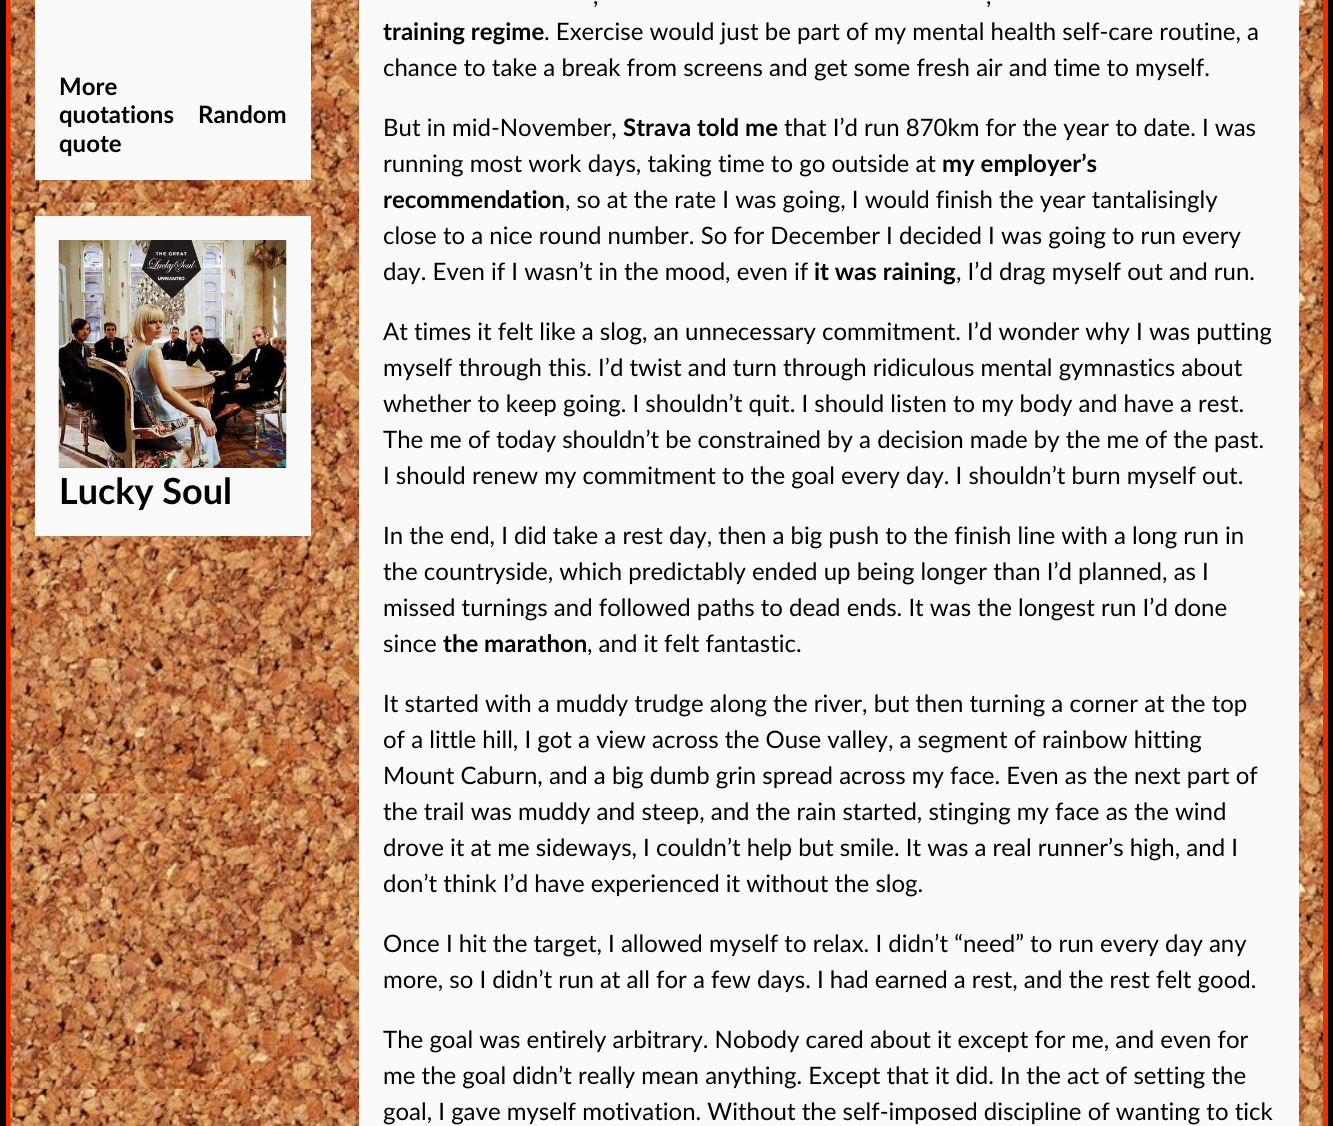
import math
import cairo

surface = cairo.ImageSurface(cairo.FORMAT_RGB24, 1333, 1126)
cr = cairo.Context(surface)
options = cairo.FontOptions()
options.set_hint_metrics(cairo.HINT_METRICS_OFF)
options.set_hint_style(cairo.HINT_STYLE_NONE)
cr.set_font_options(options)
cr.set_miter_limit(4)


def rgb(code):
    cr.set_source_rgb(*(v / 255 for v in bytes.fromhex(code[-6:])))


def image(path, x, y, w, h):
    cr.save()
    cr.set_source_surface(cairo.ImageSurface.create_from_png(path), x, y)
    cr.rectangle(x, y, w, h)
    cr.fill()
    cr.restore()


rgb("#000000")
cr.paint()
cr.rectangle(8.5, -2.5, 1317, 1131)
rgb("#ec2e00")
cr.set_line_width(5)
cr.stroke()
image("img/1.png", 10, 0, 1313, 1126)
rgb("#fafafa")
cr.rectangle(35, 0, 276, 180)
cr.fill()
cr.rectangle(35, 216, 276, 320)
cr.fill()
image("img/2.png", 58, 240, 229, 228)
cr.rectangle(359, 0, 940, 1126)
cr.fill()
cr.select_font_face("Lato", cairo.FONT_SLANT_NORMAL, cairo.FONT_WEIGHT_BOLD)
cr.set_font_size(24)
rgb("#000000")
for x, y, s in [
    (59, 95, "More"),
    (59, 123, "quotations"),
    (198, 123, "Random"),
    (59, 152, "quote"),
]:
    cr.move_to(x, y)
    cr.show_text(s)
cr.set_font_size(36)
cr.move_to(59, 504)
cr.show_text("Lucky Soul")
cr.select_font_face("Lato")
cr.set_font_size(24)
cr.move_to(593, 4)
cr.show_text(",")
cr.move_to(986, 4)
cr.show_text(",")
cr.select_font_face("Lato", cairo.FONT_SLANT_NORMAL, cairo.FONT_WEIGHT_BOLD)
cr.move_to(383, 40)
cr.show_text("training regime")
cr.select_font_face("Lato")
for x, y, s in [
    (544, 40, ". Exercise would just be part of my mental health self-care routine, a"),
    (383, 76, "chance to take a break from screens and get some fresh air and time to myself."),
    (383, 136, "But in mid-November,"),
]:
    cr.move_to(x, y)
    cr.show_text(s)
cr.select_font_face("Lato", cairo.FONT_SLANT_NORMAL, cairo.FONT_WEIGHT_BOLD)
cr.move_to(623, 136)
cr.show_text("Strava told me")
cr.select_font_face("Lato")
cr.move_to(784, 136)
cr.show_text("that I’d run 870km for the year to date. I was")
cr.move_to(383, 172)
cr.show_text("running most work days, taking time to go outside at")
cr.select_font_face("Lato", cairo.FONT_SLANT_NORMAL, cairo.FONT_WEIGHT_BOLD)
cr.move_to(942, 172)
cr.show_text("my employer’s")
cr.move_to(383, 208)
cr.show_text("recommendation")
cr.select_font_face("Lato")
for x, y, s in [
    (565, 208, ", so at the rate I was going, I would finish the year tantalisingly"),
    (383, 244, "close to a nice round number. So for December I decided I was going to run every"),
    (383, 280, "day. Even if I wasn’t in the mood, even if"),
]:
    cr.move_to(x, y)
    cr.show_text(s)
cr.select_font_face("Lato", cairo.FONT_SLANT_NORMAL, cairo.FONT_WEIGHT_BOLD)
cr.move_to(814, 280)
cr.show_text("it was raining")
cr.select_font_face("Lato")
for x, y, s in [
    (956, 280, ", I’d drag myself out and run."),
    (383, 340, "At times it felt like a slog, an unnecessary commitment. I’d wonder why I was putting"),
    (383, 376, "myself through this. I’d twist and turn through ridiculous mental gymnastics about"),
    (383, 412, "whether to keep going. I shouldn’t quit. I should listen to my body and have a rest."),
    (383, 448, "The me of today shouldn’t be constrained by a decision made by the me of the past."),
    (383, 484, "I should renew my commitment to the goal every day. I shouldn’t burn myself out."),
    (383, 544, "In the end, I did take a rest day, then a big push to the finish line with a long run in"),
    (383, 580, "the countryside, which predictably ended up being longer than I’d planned, as I"),
    (383, 616, "missed turnings and followed paths to dead ends. It was the longest run I’d done"),
    (383, 652, "since"),
]:
    cr.move_to(x, y)
    cr.show_text(s)
cr.select_font_face("Lato", cairo.FONT_SLANT_NORMAL, cairo.FONT_WEIGHT_BOLD)
cr.move_to(443, 652)
cr.show_text("the marathon")
cr.select_font_face("Lato")
for x, y, s in [
    (587, 652, ", and it felt fantastic."),
    (383, 712, "It started with a muddy trudge along the river, but then turning a corner at the top"),
    (383, 748, "of a little hill, I got a view across the Ouse valley, a segment of rainbow hitting"),
    (383, 784, "Mount Caburn, and a big dumb grin spread across my face. Even as the next part of"),
    (383, 820, "the trail was muddy and steep, and the rain started, stinging my face as the wind"),
    (383, 856, "drove it at me sideways, I couldn’t help but smile. It was a real runner’s high, and I"),
    (383, 892, "don’t think I’d have experienced it without the slog."),
    (383, 952, "Once I hit the target, I allowed myself to relax. I didn’t “need” to run every day any"),
    (383, 988, "more, so I didn’t run at all for a few days. I had earned a rest, and the rest felt good."),
    (383, 1048, "The goal was entirely arbitrary. Nobody cared about it except for me, and even for"),
    (383, 1084, "me the goal didn’t really mean anything. Except that it did. In the act of setting the"),
    (383, 1120, "goal, I gave myself motivation. Without the self-imposed discipline of wanting to tick"),
]:
    cr.move_to(x, y)
    cr.show_text(s)
surface.write_to_png("page.png")
